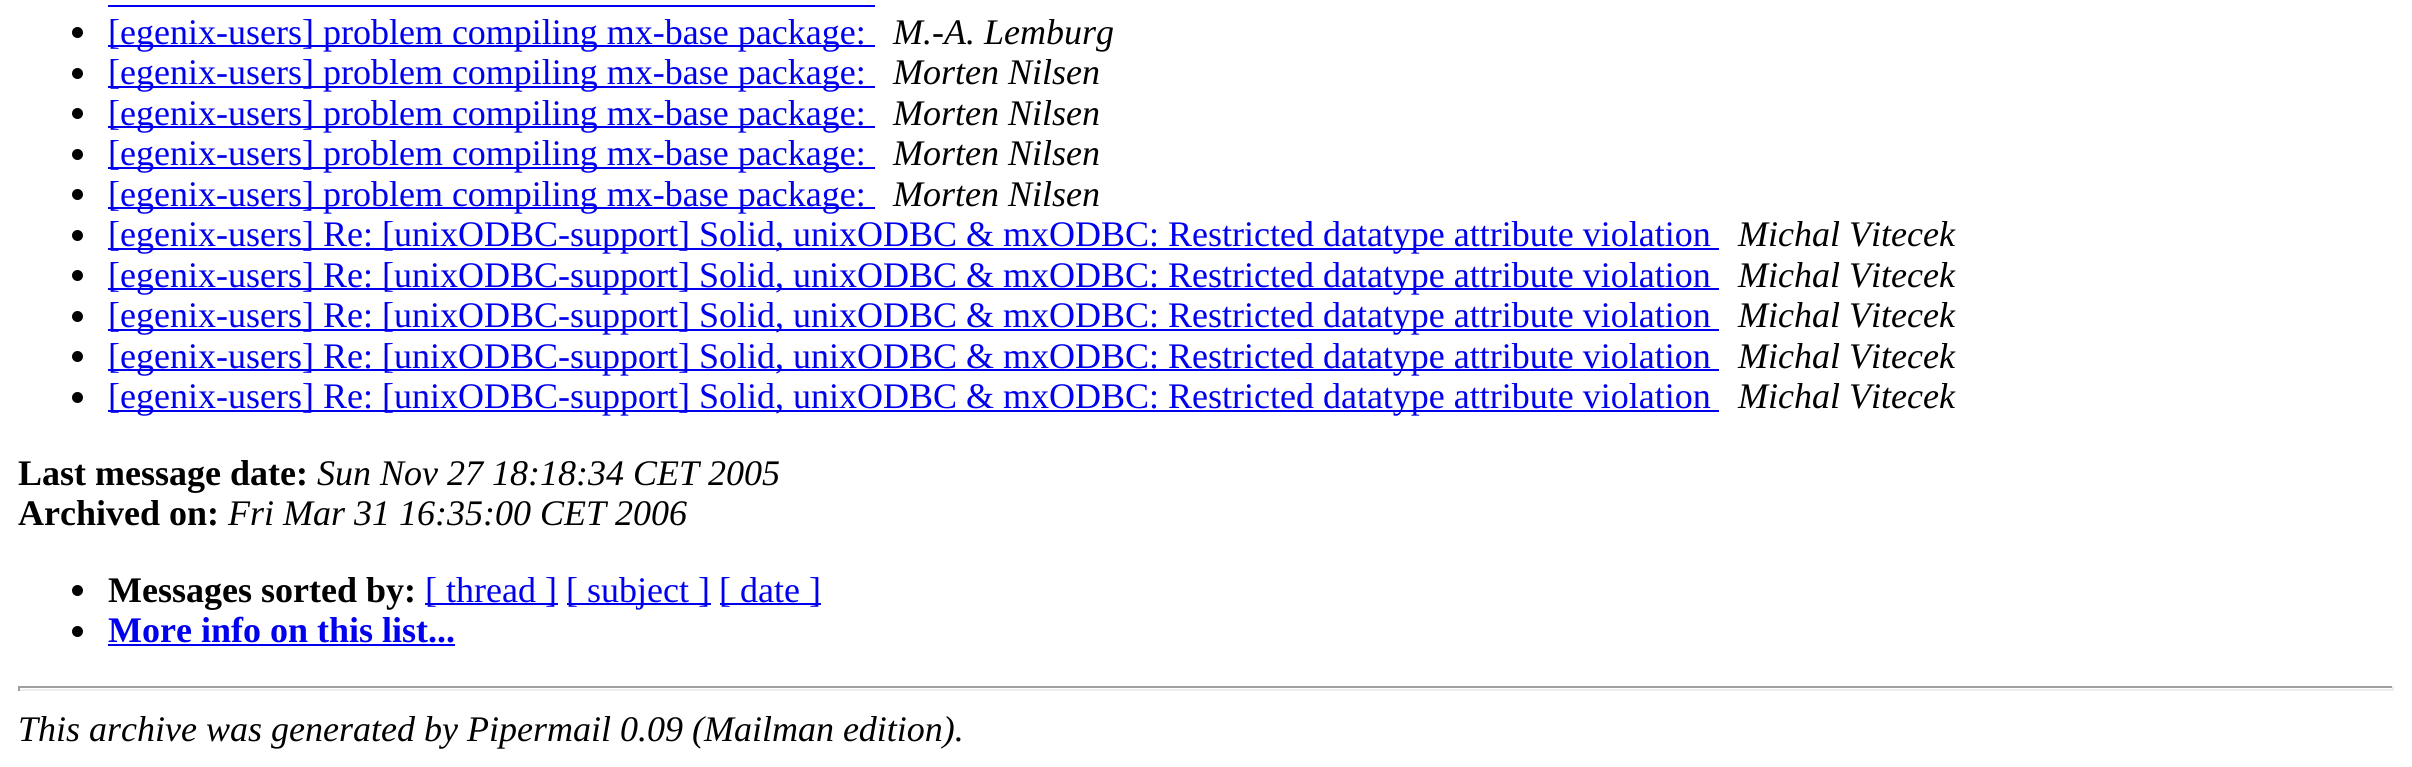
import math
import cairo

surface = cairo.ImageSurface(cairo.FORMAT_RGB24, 2412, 767)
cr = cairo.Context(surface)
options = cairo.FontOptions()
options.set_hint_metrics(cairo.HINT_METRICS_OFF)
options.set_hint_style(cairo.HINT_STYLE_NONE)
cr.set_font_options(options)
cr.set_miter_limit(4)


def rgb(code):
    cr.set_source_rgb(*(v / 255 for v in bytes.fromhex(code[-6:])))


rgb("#ffffff")
cr.paint()
rgb("#0000ee")
cr.rectangle(108, 5, 767, 2)
cr.fill()
rgb("#000000")
cr.arc(77.5, 32.5, 5.5, 0, 2 * math.pi)
cr.fill()
rgb("#0000ee")
cr.rectangle(108, 45, 767, 2)
cr.fill()
rgb("#000000")
cr.arc(77.5, 73.5, 5.5, 0, 2 * math.pi)
cr.fill()
rgb("#0000ee")
cr.rectangle(108, 86, 767, 2)
cr.fill()
rgb("#000000")
cr.arc(77.5, 113.5, 5.5, 0, 2 * math.pi)
cr.fill()
rgb("#0000ee")
cr.rectangle(108, 126, 767, 2)
cr.fill()
rgb("#000000")
cr.arc(77.5, 154.5, 5.5, 0, 2 * math.pi)
cr.fill()
rgb("#0000ee")
cr.rectangle(108, 167, 767, 2)
cr.fill()
rgb("#000000")
cr.arc(77.5, 194.5, 5.5, 0, 2 * math.pi)
cr.fill()
rgb("#0000ee")
cr.rectangle(108, 207, 767, 2)
cr.fill()
rgb("#000000")
cr.arc(77.5, 235.5, 5.5, 0, 2 * math.pi)
cr.fill()
rgb("#0000ee")
cr.rectangle(108, 248, 1611, 2)
cr.fill()
rgb("#000000")
cr.arc(77.5, 275.5, 5.5, 0, 2 * math.pi)
cr.fill()
rgb("#0000ee")
cr.rectangle(108, 288, 1611, 2)
cr.fill()
rgb("#000000")
cr.arc(77.5, 316.5, 5.5, 0, 2 * math.pi)
cr.fill()
rgb("#0000ee")
cr.rectangle(108, 329, 1611, 2)
cr.fill()
rgb("#000000")
cr.arc(77.5, 356.5, 5.5, 0, 2 * math.pi)
cr.fill()
rgb("#0000ee")
cr.rectangle(108, 369, 1611, 2)
cr.fill()
rgb("#000000")
cr.arc(77.5, 397.5, 5.5, 0, 2 * math.pi)
cr.fill()
rgb("#0000ee")
cr.rectangle(108, 410, 1611, 2)
cr.fill()
rgb("#000000")
cr.arc(77.5, 590.5, 5.5, 0, 2 * math.pi)
cr.fill()
for x, y, w, h, color in [
    (425, 603, 133, 2, "#0000ee"),
    (567, 603, 144, 2, "#0000ee"),
    (720, 603, 101, 2, "#0000ee"),
]:
    rgb(color)
    cr.rectangle(x, y, w, h)
    cr.fill()
rgb("#000000")
cr.arc(77.5, 631.5, 5.5, 0, 2 * math.pi)
cr.fill()
for x, y, w, h, color in [
    (108, 644, 347, 2, "#0000ee"),
    (18, 686, 2376, 2, "#9f9f9f"),
    (2392, 686, 2, 5, "#eeeeee"),
    (18, 689, 2376, 2, "#eeeeee"),
    (18, 686, 2, 5, "#9f9f9f"),
]:
    rgb(color)
    cr.rectangle(x, y, w, h)
    cr.fill()
cr.select_font_face("Liberation Serif")
cr.set_font_size(36)
rgb("#0000ee")
cr.move_to(108, 44)
cr.show_text("[egenix-users] problem compiling mx-base package:")
cr.select_font_face("Liberation Serif", cairo.FONT_SLANT_ITALIC)
rgb("#000000")
cr.move_to(893, 44)
cr.show_text("M.-A. Lemburg")
cr.select_font_face("Liberation Serif")
rgb("#0000ee")
cr.move_to(108, 84)
cr.show_text("[egenix-users] problem compiling mx-base package:")
cr.select_font_face("Liberation Serif", cairo.FONT_SLANT_ITALIC)
rgb("#000000")
cr.move_to(893, 84)
cr.show_text("Morten Nilsen")
cr.select_font_face("Liberation Serif")
rgb("#0000ee")
cr.move_to(108, 125)
cr.show_text("[egenix-users] problem compiling mx-base package:")
cr.select_font_face("Liberation Serif", cairo.FONT_SLANT_ITALIC)
rgb("#000000")
cr.move_to(893, 125)
cr.show_text("Morten Nilsen")
cr.select_font_face("Liberation Serif")
rgb("#0000ee")
cr.move_to(108, 165)
cr.show_text("[egenix-users] problem compiling mx-base package:")
cr.select_font_face("Liberation Serif", cairo.FONT_SLANT_ITALIC)
rgb("#000000")
cr.move_to(893, 165)
cr.show_text("Morten Nilsen")
cr.select_font_face("Liberation Serif")
rgb("#0000ee")
cr.move_to(108, 206)
cr.show_text("[egenix-users] problem compiling mx-base package:")
cr.select_font_face("Liberation Serif", cairo.FONT_SLANT_ITALIC)
rgb("#000000")
cr.move_to(893, 206)
cr.show_text("Morten Nilsen")
cr.select_font_face("Liberation Serif")
rgb("#0000ee")
cr.move_to(108, 246)
cr.show_text("[egenix-users] Re: [unixODBC-support] Solid, unixODBC & mxODBC: Restricted datatype attribute violation")
cr.select_font_face("Liberation Serif", cairo.FONT_SLANT_ITALIC)
rgb("#000000")
cr.move_to(1738, 246)
cr.show_text("Michal Vitecek")
cr.select_font_face("Liberation Serif")
rgb("#0000ee")
cr.move_to(108, 287)
cr.show_text("[egenix-users] Re: [unixODBC-support] Solid, unixODBC & mxODBC: Restricted datatype attribute violation")
cr.select_font_face("Liberation Serif", cairo.FONT_SLANT_ITALIC)
rgb("#000000")
cr.move_to(1738, 287)
cr.show_text("Michal Vitecek")
cr.select_font_face("Liberation Serif")
rgb("#0000ee")
cr.move_to(108, 327)
cr.show_text("[egenix-users] Re: [unixODBC-support] Solid, unixODBC & mxODBC: Restricted datatype attribute violation")
cr.select_font_face("Liberation Serif", cairo.FONT_SLANT_ITALIC)
rgb("#000000")
cr.move_to(1738, 327)
cr.show_text("Michal Vitecek")
cr.select_font_face("Liberation Serif")
rgb("#0000ee")
cr.move_to(108, 368)
cr.show_text("[egenix-users] Re: [unixODBC-support] Solid, unixODBC & mxODBC: Restricted datatype attribute violation")
cr.select_font_face("Liberation Serif", cairo.FONT_SLANT_ITALIC)
rgb("#000000")
cr.move_to(1738, 368)
cr.show_text("Michal Vitecek")
cr.select_font_face("Liberation Serif")
rgb("#0000ee")
cr.move_to(108, 408)
cr.show_text("[egenix-users] Re: [unixODBC-support] Solid, unixODBC & mxODBC: Restricted datatype attribute violation")
cr.select_font_face("Liberation Serif", cairo.FONT_SLANT_ITALIC)
rgb("#000000")
cr.move_to(1738, 408)
cr.show_text("Michal Vitecek")
cr.select_font_face("Liberation Serif", cairo.FONT_SLANT_NORMAL, cairo.FONT_WEIGHT_BOLD)
cr.move_to(18, 485)
cr.show_text("Last message date:")
cr.select_font_face("Liberation Serif", cairo.FONT_SLANT_ITALIC)
cr.move_to(317, 485)
cr.show_text("Sun Nov 27 18:18:34 CET 2005")
cr.select_font_face("Liberation Serif", cairo.FONT_SLANT_NORMAL, cairo.FONT_WEIGHT_BOLD)
cr.move_to(18, 525)
cr.show_text("Archived on:")
cr.select_font_face("Liberation Serif", cairo.FONT_SLANT_ITALIC)
cr.move_to(228, 525)
cr.show_text("Fri Mar 31 16:35:00 CET 2006")
cr.select_font_face("Liberation Serif", cairo.FONT_SLANT_NORMAL, cairo.FONT_WEIGHT_BOLD)
cr.move_to(108, 602)
cr.show_text("Messages sorted by:")
cr.select_font_face("Liberation Serif")
rgb("#0000ee")
for x, y, s in [
    (425, 602, "[ thread ]"),
    (566, 602, "[ subject ]"),
    (719, 602, "[ date ]"),
]:
    cr.move_to(x, y)
    cr.show_text(s)
cr.select_font_face("Liberation Serif", cairo.FONT_SLANT_NORMAL, cairo.FONT_WEIGHT_BOLD)
cr.move_to(108, 642)
cr.show_text("More info on this list...")
cr.select_font_face("Liberation Serif", cairo.FONT_SLANT_ITALIC)
rgb("#000000")
cr.move_to(18, 741)
cr.show_text("This archive was generated by Pipermail 0.09 (Mailman edition).")
surface.write_to_png("page.png")
